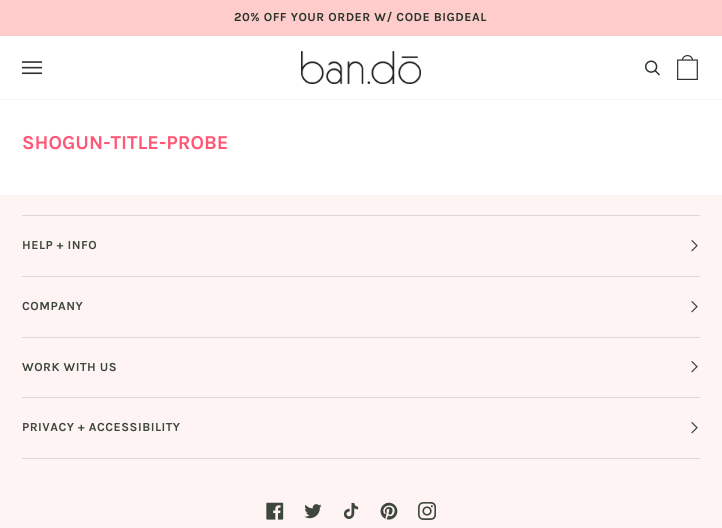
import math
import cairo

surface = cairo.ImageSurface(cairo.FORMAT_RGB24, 722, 528)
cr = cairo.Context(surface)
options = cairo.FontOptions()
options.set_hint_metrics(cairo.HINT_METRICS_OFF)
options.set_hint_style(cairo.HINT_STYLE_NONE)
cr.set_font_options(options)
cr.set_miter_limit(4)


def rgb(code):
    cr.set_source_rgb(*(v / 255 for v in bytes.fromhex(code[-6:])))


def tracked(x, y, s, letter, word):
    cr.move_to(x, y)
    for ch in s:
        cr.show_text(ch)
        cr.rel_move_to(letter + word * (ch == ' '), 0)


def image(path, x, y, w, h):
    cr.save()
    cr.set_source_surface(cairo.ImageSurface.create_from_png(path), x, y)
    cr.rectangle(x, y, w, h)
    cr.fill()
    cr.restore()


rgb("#ffffff")
cr.paint()
rgb("#ffcccc")
cr.rectangle(0, 0, 722, 36)
cr.fill()
rgb("#f7f6f5")
cr.rectangle(0, 99, 722, 1)
cr.fill()
image("img/1.png", 22, 61, 20, 14)
image("img/2.png", 301, 51, 120, 33)
image("img/3.png", 645, 60, 15, 16)
image("img/4.png", 677, 55, 21, 25)
for x, y, w, h, color in [
    (0, 195, 722, 333, "#fff4f4"),
    (22, 215, 678, 1, "#dfd7d5"),
    (22, 276, 678, 1, "#dfd7d5"),
]:
    rgb(color)
    cr.rectangle(x, y, w, h)
    cr.fill()
image("img/5.png", 691, 240, 7, 12)
cr.rectangle(22, 337, 678, 1)
cr.fill()
image("img/5.png", 691, 301, 7, 12)
cr.rectangle(22, 397, 678, 1)
cr.fill()
image("img/5.png", 691, 361, 7, 12)
cr.rectangle(22, 458, 678, 1)
cr.fill()
image("img/5.png", 691, 422, 7, 12)
image("img/6.png", 266, 502, 18, 18)
image("img/7.png", 304, 504, 18, 15)
image("img/8.png", 343, 502, 16, 17)
image("img/9.png", 380, 502, 18, 18)
image("img/10.png", 418, 502, 18, 18)
cr.select_font_face("Karla", cairo.FONT_SLANT_NORMAL, cairo.FONT_WEIGHT_BOLD)
cr.set_font_size(12.3)
rgb("#293428")
tracked(234, 21, "20% OFF YOUR ORDER W/ CODE BIGDEAL", 0.5, 0)
cr.set_font_size(19.75)
rgb("#ff5776")
cr.move_to(22, 149)
cr.show_text("SHOGUN-TITLE-PROBE")
cr.set_font_size(12.3)
rgb("#3e473c")
for x, y, s in [
    (22, 249, "HELP + INFO"),
    (22, 310, "COMPANY"),
    (22, 371, "WORK WITH US"),
    (22, 431, "PRIVACY + ACCESSIBILITY"),
]:
    tracked(x, y, s, 0.5, 0)
surface.write_to_png("page.png")
